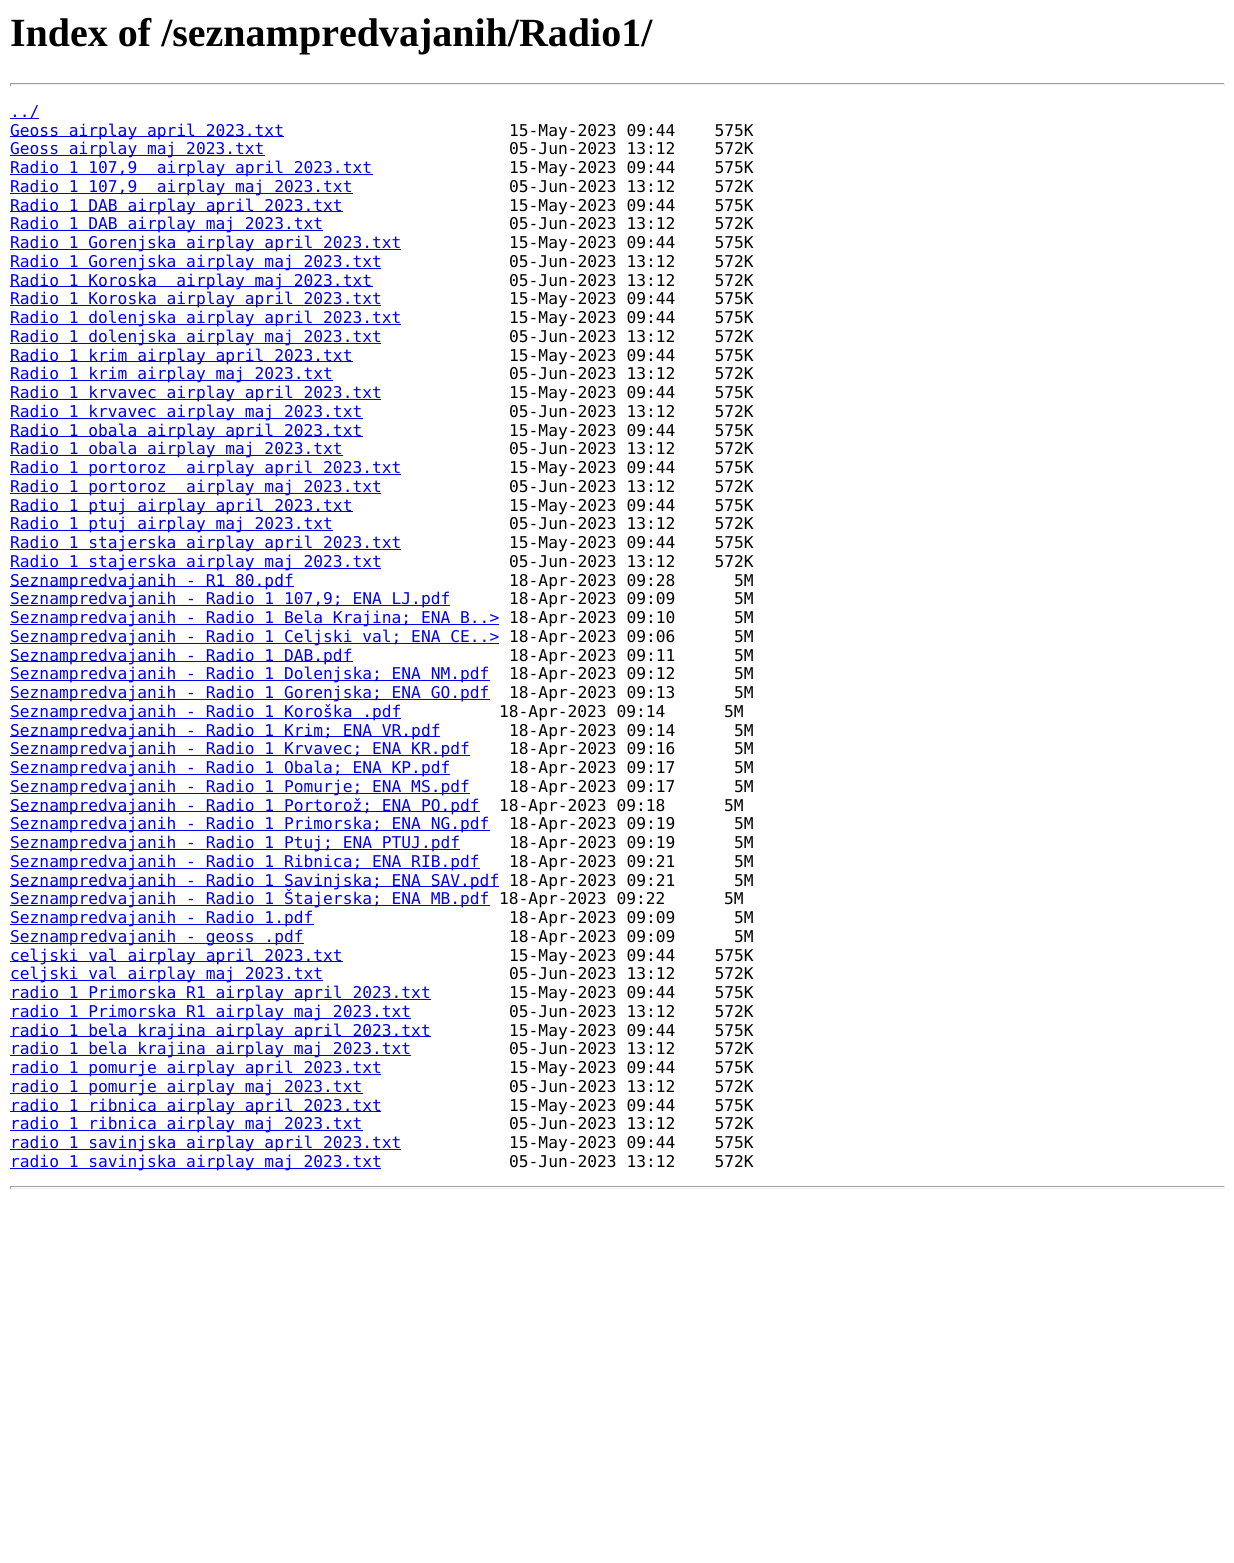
import math
import cairo

surface = cairo.ImageSurface(cairo.FORMAT_RGB24, 1234, 1563)
cr = cairo.Context(surface)
options = cairo.FontOptions()
options.set_hint_metrics(cairo.HINT_METRICS_OFF)
options.set_hint_style(cairo.HINT_STYLE_NONE)
cr.set_font_options(options)
cr.set_miter_limit(4)


def rgb(code):
    cr.set_source_rgb(*(v / 255 for v in bytes.fromhex(code[-6:])))


rgb("#ffffff")
cr.paint()
for x, y, w, h, color in [
    (10, 83, 1215, 1, "#9f9f9f"),
    (1224, 83, 1, 3, "#eeeeee"),
    (10, 84, 1215, 1, "#eeeeee"),
    (10, 83, 1, 3, "#9f9f9f"),
    (10, 118, 29, 1, "#0000ee"),
    (10, 136, 274, 1, "#0000ee"),
    (10, 155, 255, 1, "#0000ee"),
    (10, 174, 363, 1, "#0000ee"),
    (10, 193, 343, 1, "#0000ee"),
    (10, 211, 333, 1, "#0000ee"),
    (10, 230, 313, 1, "#0000ee"),
    (10, 249, 391, 1, "#0000ee"),
    (10, 268, 371, 1, "#0000ee"),
    (10, 286, 363, 1, "#0000ee"),
    (10, 305, 371, 1, "#0000ee"),
    (10, 324, 391, 1, "#0000ee"),
    (10, 343, 371, 1, "#0000ee"),
    (10, 361, 343, 1, "#0000ee"),
    (10, 380, 323, 1, "#0000ee"),
    (10, 399, 371, 1, "#0000ee"),
    (10, 418, 353, 1, "#0000ee"),
    (10, 436, 353, 1, "#0000ee"),
    (10, 455, 333, 1, "#0000ee"),
    (10, 474, 391, 1, "#0000ee"),
    (10, 493, 371, 1, "#0000ee"),
    (10, 511, 343, 1, "#0000ee"),
    (10, 530, 323, 1, "#0000ee"),
    (10, 549, 391, 1, "#0000ee"),
    (10, 568, 371, 1, "#0000ee"),
    (10, 586, 284, 1, "#0000ee"),
    (10, 605, 440, 1, "#0000ee"),
    (10, 624, 489, 1, "#0000ee"),
    (10, 643, 489, 1, "#0000ee"),
    (10, 661, 343, 1, "#0000ee"),
    (10, 680, 480, 1, "#0000ee"),
    (10, 699, 480, 1, "#0000ee"),
    (10, 718, 391, 1, "#0000ee"),
    (10, 736, 430, 1, "#0000ee"),
    (10, 755, 460, 1, "#0000ee"),
    (10, 774, 440, 1, "#0000ee"),
    (10, 793, 460, 1, "#0000ee"),
    (10, 811, 470, 1, "#0000ee"),
    (10, 830, 480, 1, "#0000ee"),
    (10, 849, 450, 1, "#0000ee"),
    (10, 868, 470, 1, "#0000ee"),
    (10, 886, 489, 1, "#0000ee"),
    (10, 905, 480, 1, "#0000ee"),
    (10, 924, 304, 1, "#0000ee"),
    (10, 943, 294, 1, "#0000ee"),
    (10, 961, 333, 1, "#0000ee"),
    (10, 980, 313, 1, "#0000ee"),
    (10, 999, 421, 1, "#0000ee"),
    (10, 1018, 401, 1, "#0000ee"),
    (10, 1036, 421, 1, "#0000ee"),
    (10, 1055, 401, 1, "#0000ee"),
    (10, 1074, 371, 1, "#0000ee"),
    (10, 1093, 353, 1, "#0000ee"),
    (10, 1111, 371, 1, "#0000ee"),
    (10, 1130, 353, 1, "#0000ee"),
    (10, 1149, 391, 1, "#0000ee"),
    (10, 1168, 371, 1, "#0000ee"),
    (10, 1186, 1215, 1, "#9f9f9f"),
    (1224, 1186, 1, 3, "#eeeeee"),
    (10, 1188, 1215, 1, "#eeeeee"),
    (10, 1186, 1, 3, "#9f9f9f"),
]:
    rgb(color)
    cr.rectangle(x, y, w, h)
    cr.fill()
cr.select_font_face("Liberation Serif", cairo.FONT_SLANT_NORMAL, cairo.FONT_WEIGHT_BOLD)
cr.set_font_size(40)
rgb("#000000")
cr.move_to(10, 46)
cr.show_text("Index of /seznampredvajanih/Radio1/")
cr.select_font_face("DejaVu Sans Mono")
cr.set_font_size(16.25)
rgb("#0000ee")
cr.move_to(10, 117)
cr.show_text("../")
cr.move_to(10, 136)
cr.show_text("Geoss airplay april 2023.txt")
rgb("#000000")
cr.move_to(509, 136)
cr.show_text("15-May-2023 09:44    575K")
rgb("#0000ee")
cr.move_to(10, 154)
cr.show_text("Geoss airplay maj 2023.txt")
rgb("#000000")
cr.move_to(509, 154)
cr.show_text("05-Jun-2023 13:12    572K")
rgb("#0000ee")
cr.move_to(10, 173)
cr.show_text("Radio 1 107,9  airplay april 2023.txt")
rgb("#000000")
cr.move_to(509, 173)
cr.show_text("15-May-2023 09:44    575K")
rgb("#0000ee")
cr.move_to(10, 192)
cr.show_text("Radio 1 107,9  airplay maj 2023.txt")
rgb("#000000")
cr.move_to(509, 192)
cr.show_text("05-Jun-2023 13:12    572K")
rgb("#0000ee")
cr.move_to(10, 211)
cr.show_text("Radio 1 DAB airplay april 2023.txt")
rgb("#000000")
cr.move_to(509, 211)
cr.show_text("15-May-2023 09:44    575K")
rgb("#0000ee")
cr.move_to(10, 229)
cr.show_text("Radio 1 DAB airplay maj 2023.txt")
rgb("#000000")
cr.move_to(509, 229)
cr.show_text("05-Jun-2023 13:12    572K")
rgb("#0000ee")
cr.move_to(10, 248)
cr.show_text("Radio 1 Gorenjska airplay april 2023.txt")
rgb("#000000")
cr.move_to(509, 248)
cr.show_text("15-May-2023 09:44    575K")
rgb("#0000ee")
cr.move_to(10, 267)
cr.show_text("Radio 1 Gorenjska airplay maj 2023.txt")
rgb("#000000")
cr.move_to(509, 267)
cr.show_text("05-Jun-2023 13:12    572K")
rgb("#0000ee")
cr.move_to(10, 286)
cr.show_text("Radio 1 Koroska  airplay maj 2023.txt")
rgb("#000000")
cr.move_to(509, 286)
cr.show_text("05-Jun-2023 13:12    572K")
rgb("#0000ee")
cr.move_to(10, 304)
cr.show_text("Radio 1 Koroska airplay april 2023.txt")
rgb("#000000")
cr.move_to(509, 304)
cr.show_text("15-May-2023 09:44    575K")
rgb("#0000ee")
cr.move_to(10, 323)
cr.show_text("Radio 1 dolenjska airplay april 2023.txt")
rgb("#000000")
cr.move_to(509, 323)
cr.show_text("15-May-2023 09:44    575K")
rgb("#0000ee")
cr.move_to(10, 342)
cr.show_text("Radio 1 dolenjska airplay maj 2023.txt")
rgb("#000000")
cr.move_to(509, 342)
cr.show_text("05-Jun-2023 13:12    572K")
rgb("#0000ee")
cr.move_to(10, 361)
cr.show_text("Radio 1 krim airplay april 2023.txt")
rgb("#000000")
cr.move_to(509, 361)
cr.show_text("15-May-2023 09:44    575K")
rgb("#0000ee")
cr.move_to(10, 379)
cr.show_text("Radio 1 krim airplay maj 2023.txt")
rgb("#000000")
cr.move_to(509, 379)
cr.show_text("05-Jun-2023 13:12    572K")
rgb("#0000ee")
cr.move_to(10, 398)
cr.show_text("Radio 1 krvavec airplay april 2023.txt")
rgb("#000000")
cr.move_to(509, 398)
cr.show_text("15-May-2023 09:44    575K")
rgb("#0000ee")
cr.move_to(10, 417)
cr.show_text("Radio 1 krvavec airplay maj 2023.txt")
rgb("#000000")
cr.move_to(509, 417)
cr.show_text("05-Jun-2023 13:12    572K")
rgb("#0000ee")
cr.move_to(10, 436)
cr.show_text("Radio 1 obala airplay april 2023.txt")
rgb("#000000")
cr.move_to(509, 436)
cr.show_text("15-May-2023 09:44    575K")
rgb("#0000ee")
cr.move_to(10, 454)
cr.show_text("Radio 1 obala airplay maj 2023.txt")
rgb("#000000")
cr.move_to(509, 454)
cr.show_text("05-Jun-2023 13:12    572K")
rgb("#0000ee")
cr.move_to(10, 473)
cr.show_text("Radio 1 portoroz  airplay april 2023.txt")
rgb("#000000")
cr.move_to(509, 473)
cr.show_text("15-May-2023 09:44    575K")
rgb("#0000ee")
cr.move_to(10, 492)
cr.show_text("Radio 1 portoroz  airplay maj 2023.txt")
rgb("#000000")
cr.move_to(509, 492)
cr.show_text("05-Jun-2023 13:12    572K")
rgb("#0000ee")
cr.move_to(10, 511)
cr.show_text("Radio 1 ptuj airplay april 2023.txt")
rgb("#000000")
cr.move_to(509, 511)
cr.show_text("15-May-2023 09:44    575K")
rgb("#0000ee")
cr.move_to(10, 529)
cr.show_text("Radio 1 ptuj airplay maj 2023.txt")
rgb("#000000")
cr.move_to(509, 529)
cr.show_text("05-Jun-2023 13:12    572K")
rgb("#0000ee")
cr.move_to(10, 548)
cr.show_text("Radio 1 stajerska airplay april 2023.txt")
rgb("#000000")
cr.move_to(509, 548)
cr.show_text("15-May-2023 09:44    575K")
rgb("#0000ee")
cr.move_to(10, 567)
cr.show_text("Radio 1 stajerska airplay maj 2023.txt")
rgb("#000000")
cr.move_to(509, 567)
cr.show_text("05-Jun-2023 13:12    572K")
rgb("#0000ee")
cr.move_to(10, 586)
cr.show_text("Seznampredvajanih - R1 80.pdf")
rgb("#000000")
cr.move_to(509, 586)
cr.show_text("18-Apr-2023 09:28      5M")
rgb("#0000ee")
cr.move_to(10, 604)
cr.show_text("Seznampredvajanih - Radio 1 107,9; ENA LJ.pdf")
rgb("#000000")
cr.move_to(509, 604)
cr.show_text("18-Apr-2023 09:09      5M")
rgb("#0000ee")
cr.move_to(10, 623)
cr.show_text("Seznampredvajanih - Radio 1 Bela Krajina; ENA B..>")
rgb("#000000")
cr.move_to(509, 623)
cr.show_text("18-Apr-2023 09:10      5M")
rgb("#0000ee")
cr.move_to(10, 642)
cr.show_text("Seznampredvajanih - Radio 1 Celjski val; ENA CE..>")
rgb("#000000")
cr.move_to(509, 642)
cr.show_text("18-Apr-2023 09:06      5M")
rgb("#0000ee")
cr.move_to(10, 661)
cr.show_text("Seznampredvajanih - Radio 1 DAB.pdf")
rgb("#000000")
cr.move_to(509, 661)
cr.show_text("18-Apr-2023 09:11      5M")
rgb("#0000ee")
cr.move_to(10, 679)
cr.show_text("Seznampredvajanih - Radio 1 Dolenjska; ENA NM.pdf")
rgb("#000000")
cr.move_to(509, 679)
cr.show_text("18-Apr-2023 09:12      5M")
rgb("#0000ee")
cr.move_to(10, 698)
cr.show_text("Seznampredvajanih - Radio 1 Gorenjska; ENA GO.pdf")
rgb("#000000")
cr.move_to(509, 698)
cr.show_text("18-Apr-2023 09:13      5M")
rgb("#0000ee")
cr.move_to(10, 717)
cr.show_text("Seznampredvajanih - Radio 1 Koroška .pdf")
rgb("#000000")
cr.move_to(499, 717)
cr.show_text("18-Apr-2023 09:14      5M")
rgb("#0000ee")
cr.move_to(10, 736)
cr.show_text("Seznampredvajanih - Radio 1 Krim; ENA VR.pdf")
rgb("#000000")
cr.move_to(509, 736)
cr.show_text("18-Apr-2023 09:14      5M")
rgb("#0000ee")
cr.move_to(10, 754)
cr.show_text("Seznampredvajanih - Radio 1 Krvavec; ENA KR.pdf")
rgb("#000000")
cr.move_to(509, 754)
cr.show_text("18-Apr-2023 09:16      5M")
rgb("#0000ee")
cr.move_to(10, 773)
cr.show_text("Seznampredvajanih - Radio 1 Obala; ENA KP.pdf")
rgb("#000000")
cr.move_to(509, 773)
cr.show_text("18-Apr-2023 09:17      5M")
rgb("#0000ee")
cr.move_to(10, 792)
cr.show_text("Seznampredvajanih - Radio 1 Pomurje; ENA MS.pdf")
rgb("#000000")
cr.move_to(509, 792)
cr.show_text("18-Apr-2023 09:17      5M")
rgb("#0000ee")
cr.move_to(10, 811)
cr.show_text("Seznampredvajanih - Radio 1 Portorož; ENA PO.pdf")
rgb("#000000")
cr.move_to(499, 811)
cr.show_text("18-Apr-2023 09:18      5M")
rgb("#0000ee")
cr.move_to(10, 829)
cr.show_text("Seznampredvajanih - Radio 1 Primorska; ENA NG.pdf")
rgb("#000000")
cr.move_to(509, 829)
cr.show_text("18-Apr-2023 09:19      5M")
rgb("#0000ee")
cr.move_to(10, 848)
cr.show_text("Seznampredvajanih - Radio 1 Ptuj; ENA PTUJ.pdf")
rgb("#000000")
cr.move_to(509, 848)
cr.show_text("18-Apr-2023 09:19      5M")
rgb("#0000ee")
cr.move_to(10, 867)
cr.show_text("Seznampredvajanih - Radio 1 Ribnica; ENA RIB.pdf")
rgb("#000000")
cr.move_to(509, 867)
cr.show_text("18-Apr-2023 09:21      5M")
rgb("#0000ee")
cr.move_to(10, 886)
cr.show_text("Seznampredvajanih - Radio 1 Savinjska; ENA SAV.pdf")
rgb("#000000")
cr.move_to(509, 886)
cr.show_text("18-Apr-2023 09:21      5M")
rgb("#0000ee")
cr.move_to(10, 904)
cr.show_text("Seznampredvajanih - Radio 1 Štajerska; ENA MB.pdf")
rgb("#000000")
cr.move_to(499, 904)
cr.show_text("18-Apr-2023 09:22      5M")
rgb("#0000ee")
cr.move_to(10, 923)
cr.show_text("Seznampredvajanih - Radio 1.pdf")
rgb("#000000")
cr.move_to(509, 923)
cr.show_text("18-Apr-2023 09:09      5M")
rgb("#0000ee")
cr.move_to(10, 942)
cr.show_text("Seznampredvajanih - geoss .pdf")
rgb("#000000")
cr.move_to(509, 942)
cr.show_text("18-Apr-2023 09:09      5M")
rgb("#0000ee")
cr.move_to(10, 961)
cr.show_text("celjski val airplay april 2023.txt")
rgb("#000000")
cr.move_to(509, 961)
cr.show_text("15-May-2023 09:44    575K")
rgb("#0000ee")
cr.move_to(10, 979)
cr.show_text("celjski val airplay maj 2023.txt")
rgb("#000000")
cr.move_to(509, 979)
cr.show_text("05-Jun-2023 13:12    572K")
rgb("#0000ee")
cr.move_to(10, 998)
cr.show_text("radio 1 Primorska R1 airplay april 2023.txt")
rgb("#000000")
cr.move_to(509, 998)
cr.show_text("15-May-2023 09:44    575K")
rgb("#0000ee")
cr.move_to(10, 1017)
cr.show_text("radio 1 Primorska R1 airplay maj 2023.txt")
rgb("#000000")
cr.move_to(509, 1017)
cr.show_text("05-Jun-2023 13:12    572K")
rgb("#0000ee")
cr.move_to(10, 1036)
cr.show_text("radio 1 bela krajina airplay april 2023.txt")
rgb("#000000")
cr.move_to(509, 1036)
cr.show_text("15-May-2023 09:44    575K")
rgb("#0000ee")
cr.move_to(10, 1054)
cr.show_text("radio 1 bela krajina airplay maj 2023.txt")
rgb("#000000")
cr.move_to(509, 1054)
cr.show_text("05-Jun-2023 13:12    572K")
rgb("#0000ee")
cr.move_to(10, 1073)
cr.show_text("radio 1 pomurje airplay april 2023.txt")
rgb("#000000")
cr.move_to(509, 1073)
cr.show_text("15-May-2023 09:44    575K")
rgb("#0000ee")
cr.move_to(10, 1092)
cr.show_text("radio 1 pomurje airplay maj 2023.txt")
rgb("#000000")
cr.move_to(509, 1092)
cr.show_text("05-Jun-2023 13:12    572K")
rgb("#0000ee")
cr.move_to(10, 1111)
cr.show_text("radio 1 ribnica airplay april 2023.txt")
rgb("#000000")
cr.move_to(509, 1111)
cr.show_text("15-May-2023 09:44    575K")
rgb("#0000ee")
cr.move_to(10, 1129)
cr.show_text("radio 1 ribnica airplay maj 2023.txt")
rgb("#000000")
cr.move_to(509, 1129)
cr.show_text("05-Jun-2023 13:12    572K")
rgb("#0000ee")
cr.move_to(10, 1148)
cr.show_text("radio 1 savinjska airplay april 2023.txt")
rgb("#000000")
cr.move_to(509, 1148)
cr.show_text("15-May-2023 09:44    575K")
rgb("#0000ee")
cr.move_to(10, 1167)
cr.show_text("radio 1 savinjska airplay maj 2023.txt")
rgb("#000000")
cr.move_to(509, 1167)
cr.show_text("05-Jun-2023 13:12    572K")
surface.write_to_png("page.png")
